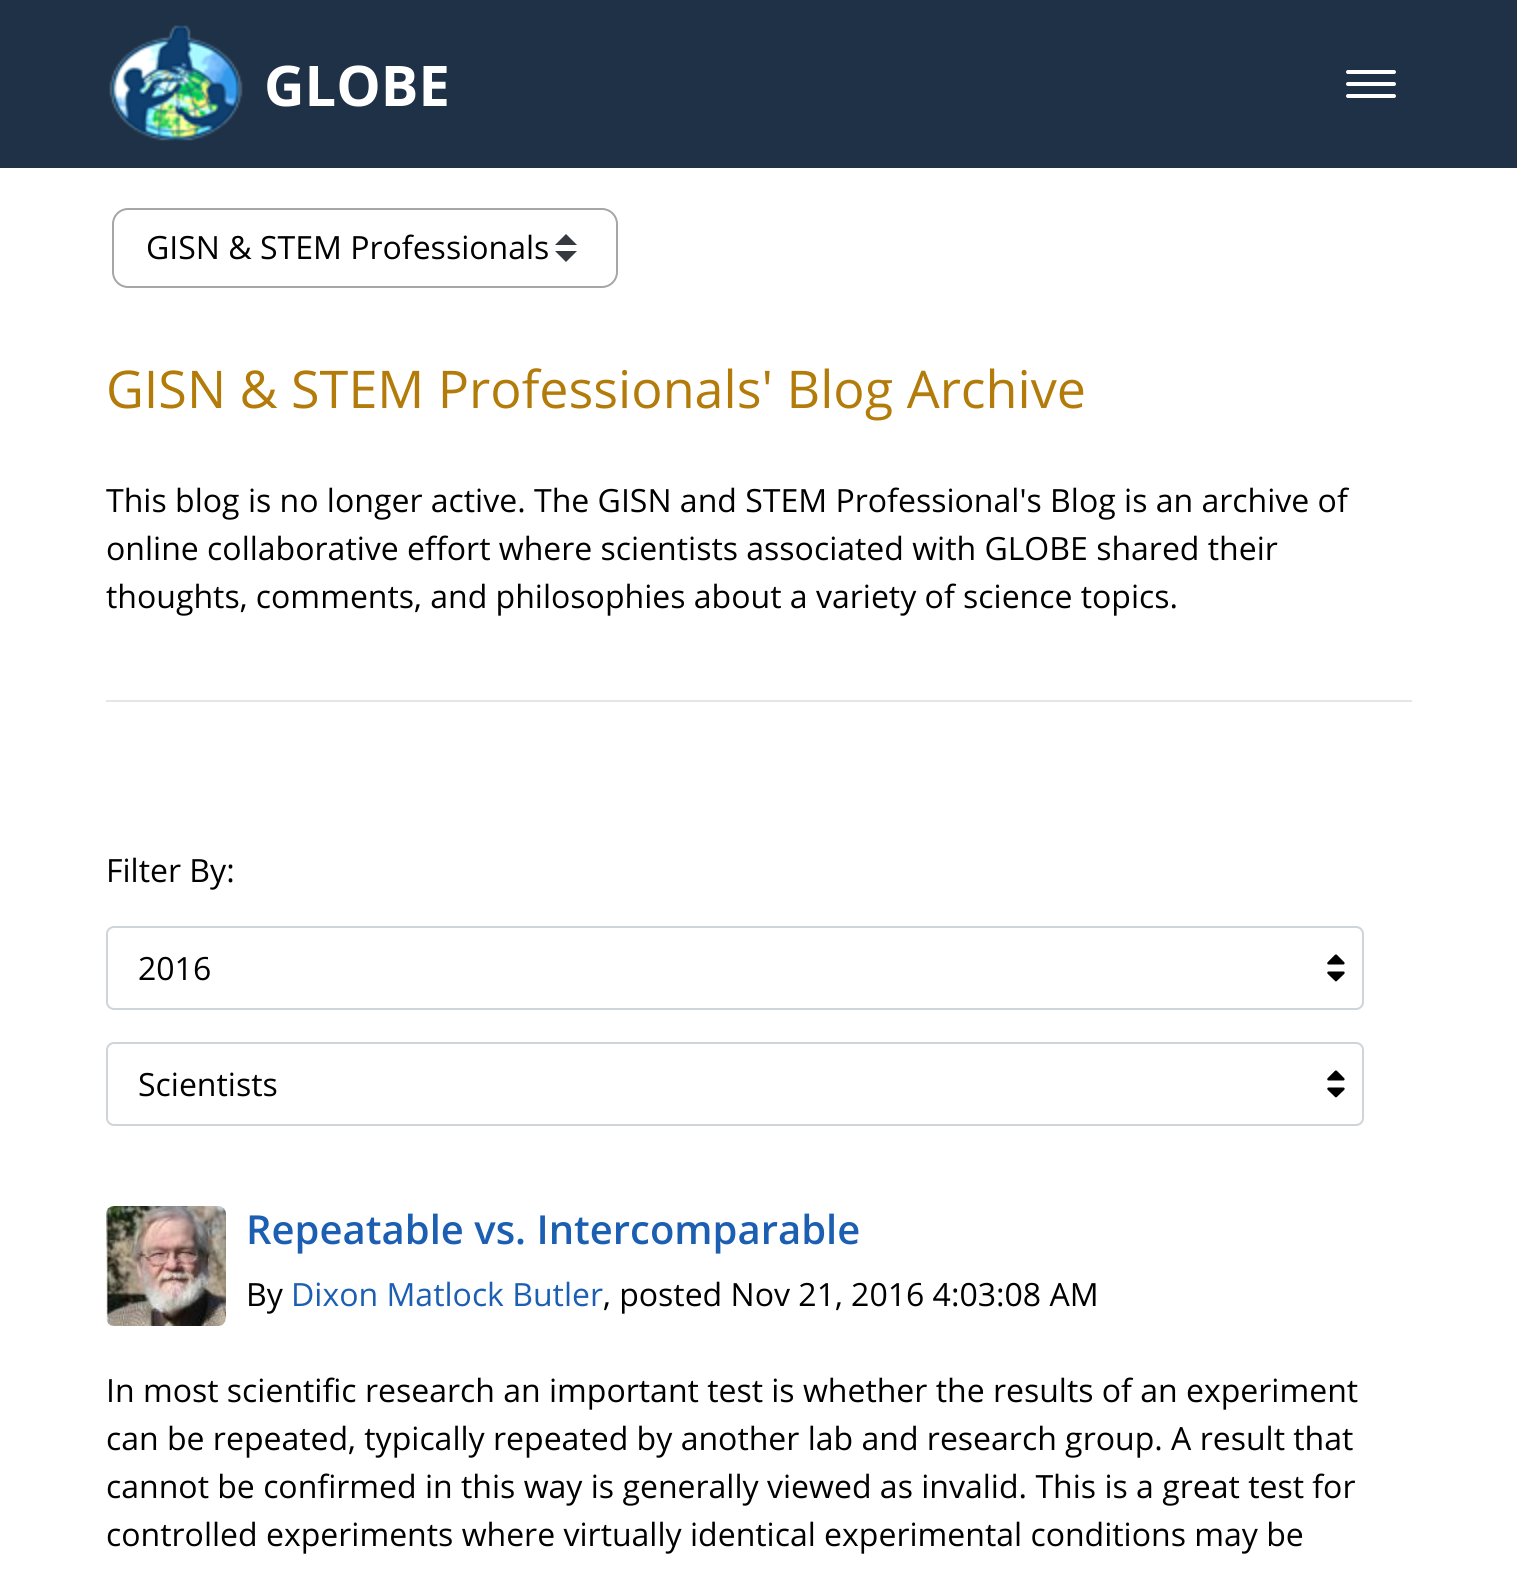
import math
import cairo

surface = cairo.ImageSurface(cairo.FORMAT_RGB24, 1517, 1579)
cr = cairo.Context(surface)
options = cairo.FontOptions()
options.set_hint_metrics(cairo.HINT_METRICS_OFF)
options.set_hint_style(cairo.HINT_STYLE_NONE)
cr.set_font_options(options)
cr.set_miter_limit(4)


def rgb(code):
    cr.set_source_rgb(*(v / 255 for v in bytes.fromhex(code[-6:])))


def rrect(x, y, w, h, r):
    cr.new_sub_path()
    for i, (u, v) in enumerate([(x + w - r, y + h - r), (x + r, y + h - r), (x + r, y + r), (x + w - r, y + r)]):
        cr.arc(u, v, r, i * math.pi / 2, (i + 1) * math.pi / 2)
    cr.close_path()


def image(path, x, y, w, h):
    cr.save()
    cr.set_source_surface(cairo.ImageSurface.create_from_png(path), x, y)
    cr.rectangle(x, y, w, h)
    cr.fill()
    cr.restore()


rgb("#ffffff")
cr.paint()
rgb("#1e3147")
cr.rectangle(0, 0, 1517, 168)
cr.fill()
image("img/1.png", 109, 25, 134, 116)
rgb("#ffffff")
rrect(1346, 70, 50, 4, 2)
cr.fill()
rrect(1346, 82, 50, 4, 2)
cr.fill()
rrect(1346, 94, 50, 4, 2)
cr.fill()
rrect(113, 209, 504, 78, 15)
rgb("#a6a6a6")
cr.stroke()
rgb("#343a40")
cr.new_path()
cr.move_to(566, 234)
cr.line_to(555, 245)
cr.line_to(577, 245)
cr.close_path()
cr.move_to(566, 262)
cr.line_to(555, 251)
cr.line_to(577, 251)
cr.close_path()
cr.fill()
rgb("#e6e6e6")
cr.rectangle(106, 700, 1306, 2)
cr.fill()
rrect(107, 927, 1256, 82, 7)
rgb("#ced4da")
cr.stroke()
image("img/2.png", 1327, 954, 18, 28)
rrect(107, 1043, 1256, 82, 7)
cr.stroke()
image("img/2.png", 1327, 1070, 18, 28)
image("img/3.png", 106, 1206, 120, 120)
cr.select_font_face("Open Sans", cairo.FONT_SLANT_NORMAL, cairo.FONT_WEIGHT_BOLD)
cr.set_font_size(56)
rgb("#ffffff")
cr.move_to(264, 106)
cr.show_text("GLOBE")
cr.select_font_face("Open Sans")
cr.set_font_size(32)
rgb("#000000")
cr.move_to(146, 259)
cr.show_text("GISN & STEM Professionals")
cr.set_font_size(52)
rgb("#b37b0a")
cr.move_to(106, 408)
cr.show_text("GISN & STEM Professionals' Blog Archive")
cr.set_font_size(32)
rgb("#000000")
for x, y, s in [
    (106, 512, "This blog is no longer active. The GISN and STEM Professional's Blog is an archive of"),
    (106, 560, "online collaborative effort where scientists associated with GLOBE shared their"),
    (106, 608, "thoughts, comments, and philosophies about a variety of science topics."),
    (106, 882, "Filter By:"),
    (138, 980, "2016"),
    (138, 1096, "Scientists"),
]:
    cr.move_to(x, y)
    cr.show_text(s)
cr.select_font_face("Open Sans SemiBold")
cr.set_font_size(40)
rgb("#1b5eb2")
cr.move_to(246, 1244)
cr.show_text("Repeatable vs. Intercomparable")
cr.select_font_face("Open Sans")
cr.set_font_size(32)
rgb("#000000")
cr.move_to(246, 1306)
cr.show_text("By")
rgb("#1b5eb2")
cr.move_to(291, 1306)
cr.show_text("Dixon Matlock Butler")
rgb("#000000")
for x, y, s in [
    (603, 1306, ", posted Nov 21, 2016 4:03:08 AM"),
    (106, 1402, "In most scientific research an important test is whether the results of an experiment"),
    (106, 1450, "can be repeated, typically repeated by another lab and research group. A result that"),
    (106, 1498, "cannot be confirmed in this way is generally viewed as invalid. This is a great test for"),
    (106, 1546, "controlled experiments where virtually identical experimental conditions may be"),
]:
    cr.move_to(x, y)
    cr.show_text(s)
surface.write_to_png("page.png")
